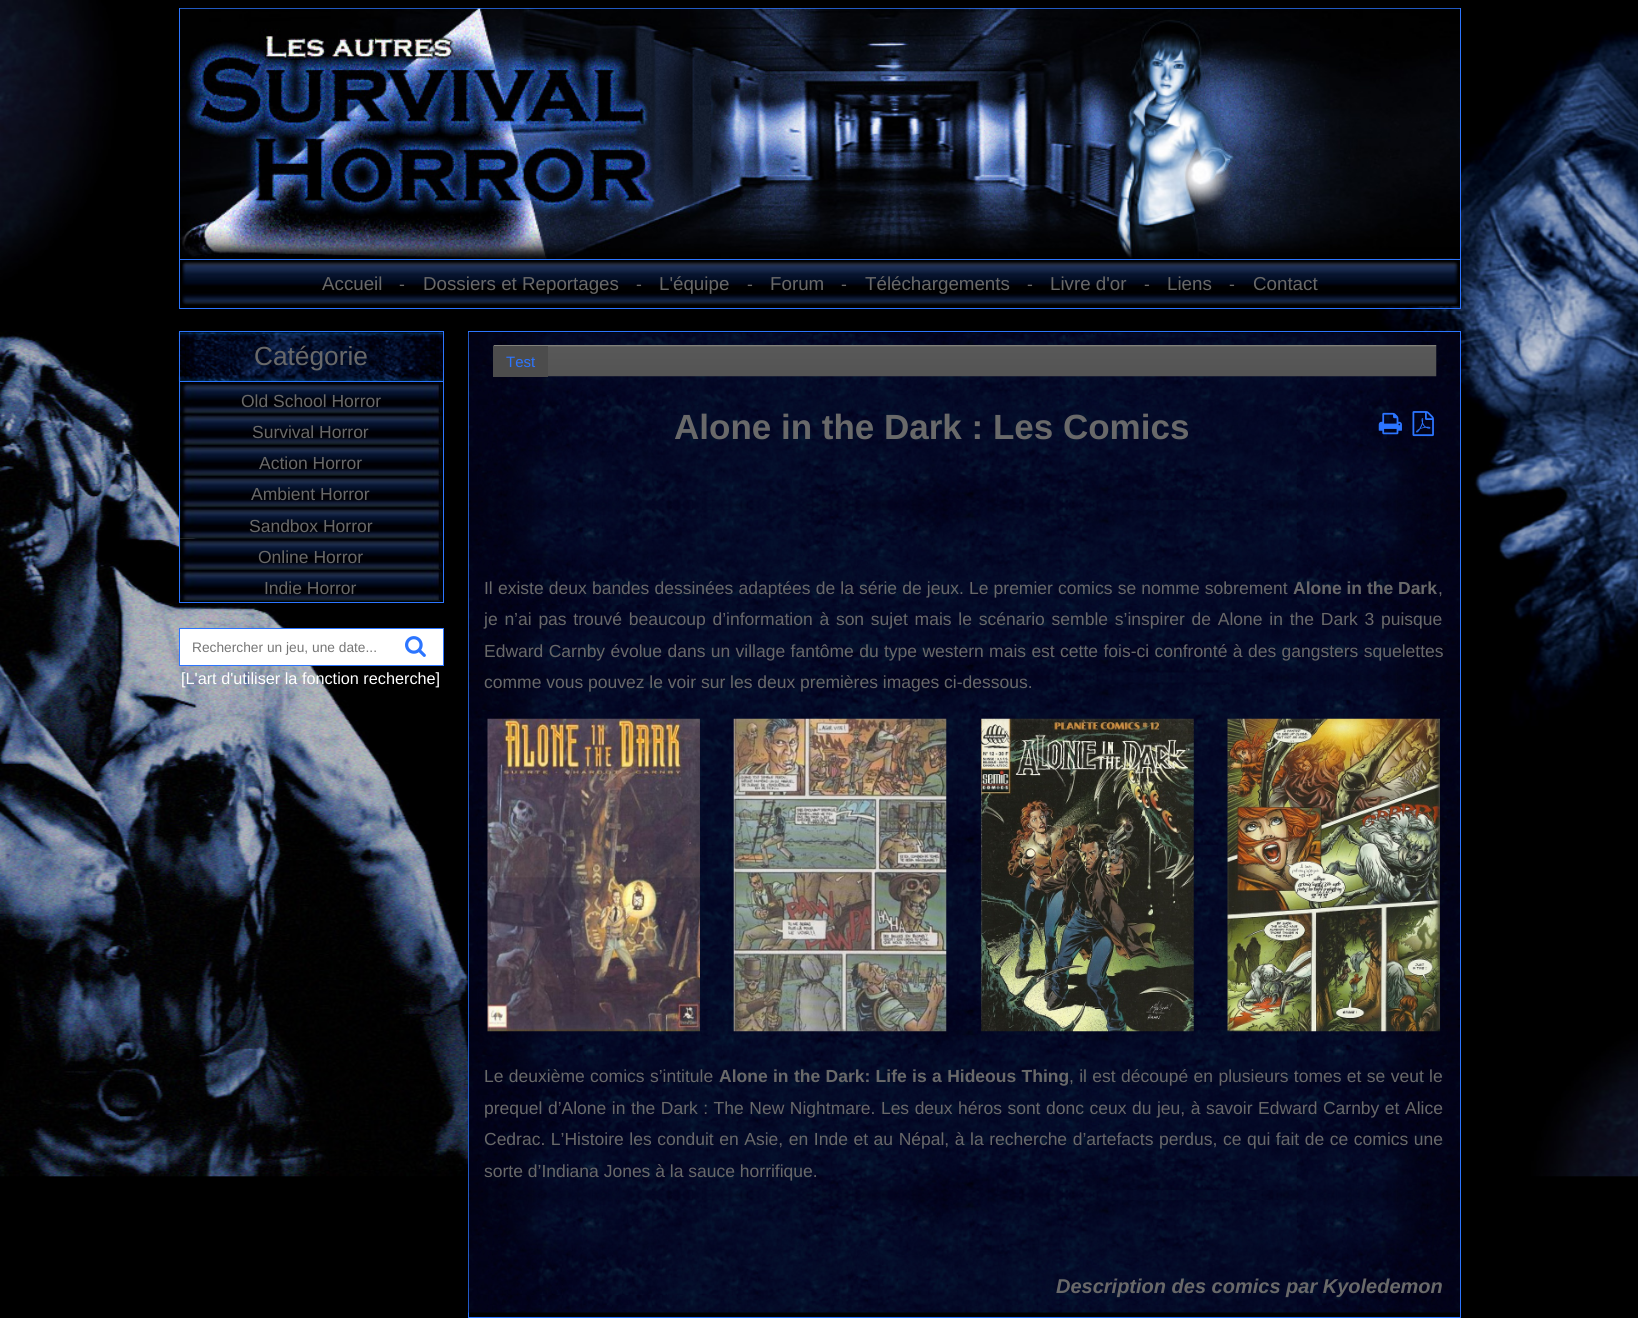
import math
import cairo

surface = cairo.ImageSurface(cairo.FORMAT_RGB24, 1638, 1318)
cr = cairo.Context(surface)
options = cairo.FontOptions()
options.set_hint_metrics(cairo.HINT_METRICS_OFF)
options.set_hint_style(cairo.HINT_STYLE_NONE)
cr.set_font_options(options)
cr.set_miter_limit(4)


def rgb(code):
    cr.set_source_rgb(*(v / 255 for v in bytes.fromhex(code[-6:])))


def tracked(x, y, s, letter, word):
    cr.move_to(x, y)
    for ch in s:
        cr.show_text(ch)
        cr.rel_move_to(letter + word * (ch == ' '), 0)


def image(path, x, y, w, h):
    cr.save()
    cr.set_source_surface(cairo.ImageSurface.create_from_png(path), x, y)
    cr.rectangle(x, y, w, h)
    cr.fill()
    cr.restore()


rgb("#000000")
cr.paint()
image("img/1.png", 0, 0, 1638, 1177)
cr.rectangle(179.5, 8.5, 1281, 300)
rgb("#2c75ff")
cr.set_line_width(1)
cr.stroke()
image("img/2.png", 180, 8, 1280, 251)
image("img/3.png", 182, 260, 1278, 47)
cr.rectangle(180, 259, 1280, 1)
cr.fill()
image("img/4.png", 178, 332, 265, 50)
cr.rectangle(179.5, 331.5, 264, 271)
cr.stroke()
cr.rectangle(180, 381, 263, 1)
cr.fill()
image("img/5.png", 180, 382, 263, 32)
image("img/6.png", 180, 413, 263, 32)
image("img/7.png", 180, 445, 263, 32)
image("img/8.png", 180, 476, 263, 32)
image("img/9.png", 180, 507, 263, 32)
image("img/10.png", 180, 538, 263, 32)
image("img/11.png", 180, 570, 263, 32)
rgb("#ffffff")
cr.rectangle(179.5, 628.5, 264, 37)
cr.fill_preserve()
rgb("#2c75ff")
cr.stroke()
image("img/12.png", 405, 636, 21, 21)
cr.rectangle(468.5, 331.5, 992, 986)
cr.stroke()
image("img/13.png", 468, 332, 992, 981)
image("img/14.png", 493, 345, 944, 32)
rgb("#4c4c4c")
cr.rectangle(493, 346, 55, 31)
cr.fill()
image("img/15.png", 1378, 412, 24, 23)
image("img/16.png", 1412, 411, 22, 26)
image("img/17.png", 487, 718, 213, 314)
image("img/18.png", 733, 718, 214, 314)
image("img/19.png", 981, 718, 213, 314)
image("img/20.png", 1227, 718, 213, 314)
cr.select_font_face("Liberation Sans")
cr.set_font_size(18.75)
rgb("#696969")
cr.move_to(322, 290)
cr.show_text("Accueil")
cr.set_font_size(17.5)
cr.move_to(399, 290)
cr.show_text("-")
cr.set_font_size(18.75)
cr.move_to(423, 290)
cr.show_text("Dossiers et Reportages")
cr.set_font_size(17.5)
cr.move_to(636, 290)
cr.show_text("-")
cr.set_font_size(18.75)
cr.move_to(659, 290)
cr.show_text("L'équipe")
cr.set_font_size(17.5)
cr.move_to(747, 290)
cr.show_text("-")
cr.set_font_size(18.75)
cr.move_to(770, 290)
cr.show_text("Forum")
cr.set_font_size(17.5)
cr.move_to(841, 290)
cr.show_text("-")
cr.set_font_size(18.75)
cr.move_to(865, 290)
cr.show_text("Téléchargements")
cr.set_font_size(17.5)
cr.move_to(1027, 290)
cr.show_text("-")
cr.set_font_size(18.75)
cr.move_to(1050, 290)
cr.show_text("Livre d'or")
cr.set_font_size(17.5)
cr.move_to(1144, 290)
cr.show_text("-")
cr.set_font_size(18.75)
cr.move_to(1167, 290)
cr.show_text("Liens")
cr.set_font_size(17.5)
cr.move_to(1229, 290)
cr.show_text("-")
cr.set_font_size(18.75)
cr.move_to(1253, 290)
cr.show_text("Contact")
cr.set_font_size(26.25)
cr.move_to(254, 365)
cr.show_text("Catégorie")
cr.set_font_size(17.5)
for x, y, s in [
    (241, 407, "Old School Horror"),
    (252, 438, "Survival Horror"),
    (259, 469, "Action Horror"),
    (251, 500, "Ambient Horror"),
    (249, 532, "Sandbox Horror"),
    (258, 563, "Online Horror"),
    (264, 594, "Indie Horror"),
]:
    cr.move_to(x, y)
    cr.show_text(s)
cr.set_font_size(13.75)
rgb("#767676")
cr.move_to(192, 652)
cr.show_text("Rechercher un jeu, une date...")
cr.set_font_size(16.25)
rgb("#ffffff")
cr.move_to(181, 684)
cr.show_text("[L'art d'utiliser la fonction recherche]")
cr.set_font_size(15)
rgb("#2c75ff")
cr.move_to(506, 367)
cr.show_text("Test")
cr.select_font_face("Liberation Sans", cairo.FONT_SLANT_NORMAL, cairo.FONT_WEIGHT_BOLD)
cr.set_font_size(35)
rgb("#696969")
cr.move_to(674, 439)
cr.show_text("Alone in the Dark : Les Comics")
cr.select_font_face("Liberation Sans")
cr.set_font_size(17.5)
tracked(484, 594, "Il existe deux bandes dessinées adaptées de la série de jeux. Le premier comics se nomme sobrement", 0, 0.3)
cr.select_font_face("Liberation Sans", cairo.FONT_SLANT_NORMAL, cairo.FONT_WEIGHT_BOLD)
cr.move_to(1293, 594)
cr.show_text("Alone in the Dark")
cr.select_font_face("Liberation Sans")
cr.move_to(1438, 594)
cr.show_text(",")
tracked(484, 625, "je n’ai pas trouvé beaucoup d’information à son sujet mais le scénario semble s’inspirer de Alone in the Dark 3 puisque", 0, 1.9)
tracked(484, 657, "Edward Carnby évolue dans un village fantôme du type western mais est cette fois-ci confronté à des gangsters squelettes", 0, 0.5)
cr.move_to(484, 688)
cr.show_text("comme vous pouvez le voir sur les deux premières images ci-dessous.")
tracked(484, 1082, "Le deuxième comics s’intitule", 0, 0.5)
cr.select_font_face("Liberation Sans", cairo.FONT_SLANT_NORMAL, cairo.FONT_WEIGHT_BOLD)
tracked(719, 1082, "Alone in the Dark: Life is a Hideous Thing", 0, 0.5)
cr.select_font_face("Liberation Sans")
tracked(1069, 1082, ", il est découpé en plusieurs tomes et se veut le", 0, 0.5)
tracked(484, 1114, "prequel d’Alone in the Dark : The New Nightmare. Les deux héros sont donc ceux du jeu, à savoir Edward Carnby et Alice", 0, 0.65)
tracked(484, 1145, "Cedrac. L’Histoire les conduit en Asie, en Inde et au Népal, à la recherche d’artefacts perdus, ce qui fait de ce comics une", 0, 0.7)
cr.move_to(484, 1177)
cr.show_text("sorte d’Indiana Jones à la sauce horrifique.")
cr.select_font_face("Liberation Sans", cairo.FONT_SLANT_ITALIC, cairo.FONT_WEIGHT_BOLD)
cr.set_font_size(20)
cr.move_to(1056, 1293)
cr.show_text("Description des comics par Kyoledemon")
surface.write_to_png("page.png")
